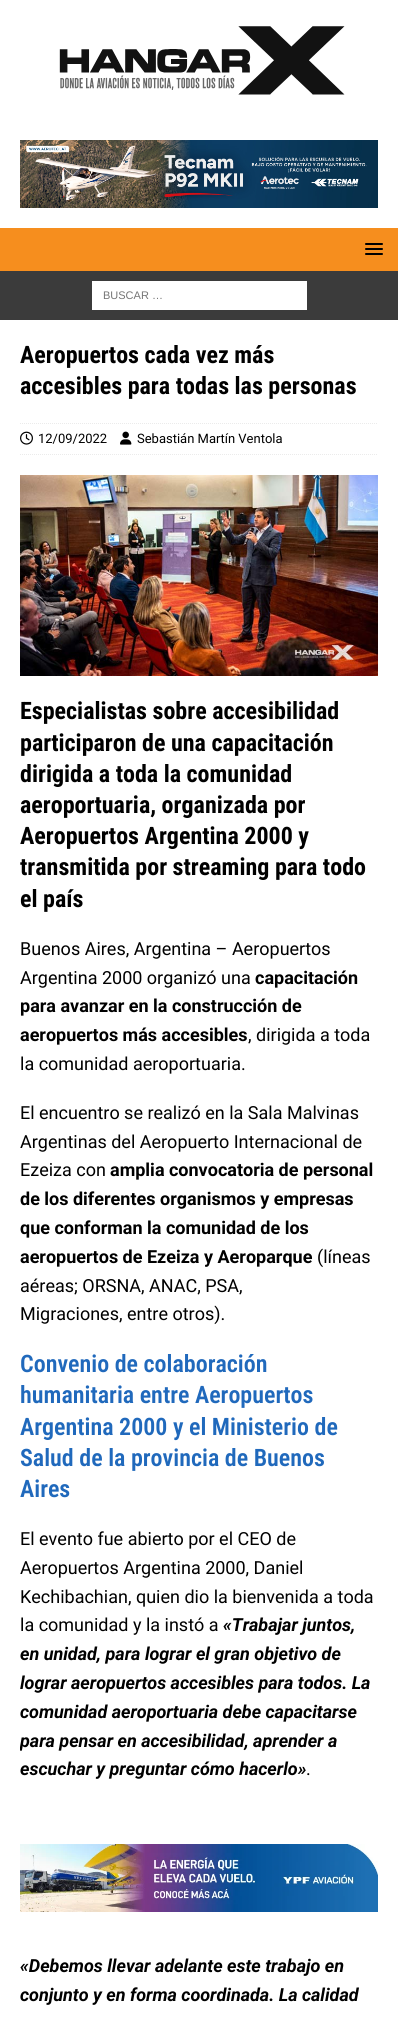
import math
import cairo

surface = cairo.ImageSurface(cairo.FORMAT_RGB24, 398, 2023)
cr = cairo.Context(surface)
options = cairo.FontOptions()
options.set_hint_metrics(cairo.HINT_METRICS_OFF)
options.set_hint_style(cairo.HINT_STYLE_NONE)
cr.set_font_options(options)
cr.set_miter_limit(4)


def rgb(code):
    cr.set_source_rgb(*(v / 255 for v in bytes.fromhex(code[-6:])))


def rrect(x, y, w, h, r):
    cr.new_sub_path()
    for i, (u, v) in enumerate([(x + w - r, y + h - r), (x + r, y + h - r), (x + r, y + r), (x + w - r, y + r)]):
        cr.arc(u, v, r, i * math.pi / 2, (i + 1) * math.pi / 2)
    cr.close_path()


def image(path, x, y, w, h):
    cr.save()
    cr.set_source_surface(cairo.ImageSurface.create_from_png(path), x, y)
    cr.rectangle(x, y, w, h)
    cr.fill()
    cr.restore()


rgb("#ffffff")
cr.paint()
image("img/1.png", 59, 26, 286, 69)
image("img/2.png", 20, 140, 358, 68)
rgb("#f68e1e")
cr.rectangle(0, 228, 398, 43)
cr.fill()
rgb("#000000")
rrect(365, 243, 18, 2, 1)
cr.fill()
rrect(365, 248, 18, 2, 1)
cr.fill()
rrect(365, 253, 18, 2, 1)
cr.fill()
rgb("#3b3b3b")
cr.rectangle(0, 271, 398, 49)
cr.fill()
rgb("#ffffff")
cr.rectangle(92, 281, 215, 29)
cr.fill()
cr.new_path()
cr.move_to(20, 423.5)
cr.line_to(378, 423.5)
rgb("#ebebeb")
cr.set_line_width(1)
cr.set_dash([1, 1])
cr.stroke()
cr.new_path()
cr.move_to(20, 454.5)
cr.line_to(378, 454.5)
cr.stroke()
image("img/3.png", 20, 431, 13, 14)
image("img/4.png", 120, 431, 12, 14)
image("img/5.png", 20, 475, 358, 201)
image("img/6.png", 20, 1844, 358, 68)
cr.select_font_face("Liberation Sans")
cr.set_font_size(11)
rgb("#757575")
cr.move_to(103, 299)
cr.show_text("BUSCAR …")
cr.select_font_face("Roboto Condensed", cairo.FONT_SLANT_NORMAL, cairo.FONT_WEIGHT_BOLD)
cr.set_font_size(24)
rgb("#000000")
cr.move_to(20, 363)
cr.show_text("Aeropuertos cada vez más")
cr.move_to(20, 394)
cr.show_text("accesibles para todas las personas")
cr.select_font_face("Roboto")
cr.set_font_size(13)
cr.move_to(38, 443)
cr.show_text("12/09/2022")
cr.move_to(137, 443)
cr.show_text("Sebastián Martín Ventola")
cr.select_font_face("Roboto Condensed", cairo.FONT_SLANT_NORMAL, cairo.FONT_WEIGHT_BOLD)
cr.set_font_size(24)
for x, y, s in [
    (20, 719, "Especialistas sobre accesibilidad"),
    (20, 751, "participaron de una capacitación"),
    (20, 782, "dirigida a toda la comunidad"),
    (20, 813, "aeroportuaria, organizada por"),
    (20, 844, "Aeropuertos Argentina 2000 y"),
    (20, 875, "transmitida por streaming para todo"),
    (20, 907, "el país"),
]:
    cr.move_to(x, y)
    cr.show_text(s)
cr.select_font_face("Roboto")
cr.set_font_size(18)
cr.move_to(20, 955)
cr.show_text("Buenos Aires, Argentina – Aeropuertos")
cr.move_to(20, 984)
cr.show_text("Argentina 2000 organizó una")
cr.select_font_face("Roboto", cairo.FONT_SLANT_NORMAL, cairo.FONT_WEIGHT_BOLD)
for x, y, s in [
    (255, 984, "capacitación"),
    (20, 1012, "para avanzar en la construcción de"),
    (20, 1041, "aeropuertos más accesibles"),
]:
    cr.move_to(x, y)
    cr.show_text(s)
cr.select_font_face("Roboto")
for x, y, s in [
    (248, 1041, ", dirigida a toda"),
    (20, 1070, "la comunidad aeroportuaria."),
    (20, 1119, "El encuentro se realizó en la Sala Malvinas"),
    (20, 1148, "Argentinas del Aeropuerto Internacional de"),
    (20, 1176, "Ezeiza con"),
]:
    cr.move_to(x, y)
    cr.show_text(s)
cr.select_font_face("Roboto", cairo.FONT_SLANT_NORMAL, cairo.FONT_WEIGHT_BOLD)
for x, y, s in [
    (110, 1176, "amplia convocatoria de personal"),
    (20, 1205, "de los diferentes organismos y empresas"),
    (20, 1234, "que conforman la comunidad de los"),
    (20, 1263, "aeropuertos de Ezeiza y Aeroparque"),
]:
    cr.move_to(x, y)
    cr.show_text(s)
cr.select_font_face("Roboto")
for x, y, s in [
    (317, 1263, "(líneas"),
    (20, 1292, "aéreas; ORSNA, ANAC, PSA,"),
    (20, 1320, "Migraciones, entre otros)."),
]:
    cr.move_to(x, y)
    cr.show_text(s)
cr.select_font_face("Roboto Condensed SemiBold")
cr.set_font_size(24)
rgb("#2069bc")
for x, y, s in [
    (20, 1372, "Convenio de colaboración"),
    (20, 1403, "humanitaria entre Aeropuertos"),
    (20, 1435, "Argentina 2000 y el Ministerio de"),
    (20, 1466, "Salud de la provincia de Buenos"),
    (20, 1497, "Aires"),
]:
    cr.move_to(x, y)
    cr.show_text(s)
cr.select_font_face("Roboto")
cr.set_font_size(18)
rgb("#000000")
for x, y, s in [
    (20, 1545, "El evento fue abierto por el CEO de"),
    (20, 1574, "Aeropuertos Argentina 2000, Daniel"),
    (20, 1603, "Kechibachian, quien dio la bienvenida a toda"),
    (20, 1631, "la comunidad y la instó a"),
]:
    cr.move_to(x, y)
    cr.show_text(s)
cr.select_font_face("Roboto", cairo.FONT_SLANT_ITALIC, cairo.FONT_WEIGHT_BOLD)
for x, y, s in [
    (223, 1631, "«Trabajar juntos,"),
    (20, 1660, "en unidad, para lograr el gran objetivo de"),
    (20, 1689, "lograr aeropuertos accesibles para todos. La"),
    (20, 1718, "comunidad aeroportuaria debe capacitarse"),
]:
    cr.move_to(x, y)
    cr.show_text(s)
cr.save()
cr.rectangle(20, 340, 358, 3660)
cr.clip()
cr.move_to(20, 1747)
cr.show_text("para pensar en accesibilidad, aprender a")
cr.restore()
cr.move_to(20, 1775)
cr.show_text("escuchar y preguntar cómo hacerlo»")
cr.select_font_face("Roboto")
cr.move_to(306, 1775)
cr.show_text(".")
cr.select_font_face("Roboto", cairo.FONT_SLANT_ITALIC, cairo.FONT_WEIGHT_BOLD)
cr.move_to(20, 1972)
cr.show_text("«Debemos llevar adelante este trabajo en")
cr.move_to(20, 2001)
cr.show_text("conjunto y en forma coordinada. La calidad")
surface.write_to_png("page.png")
